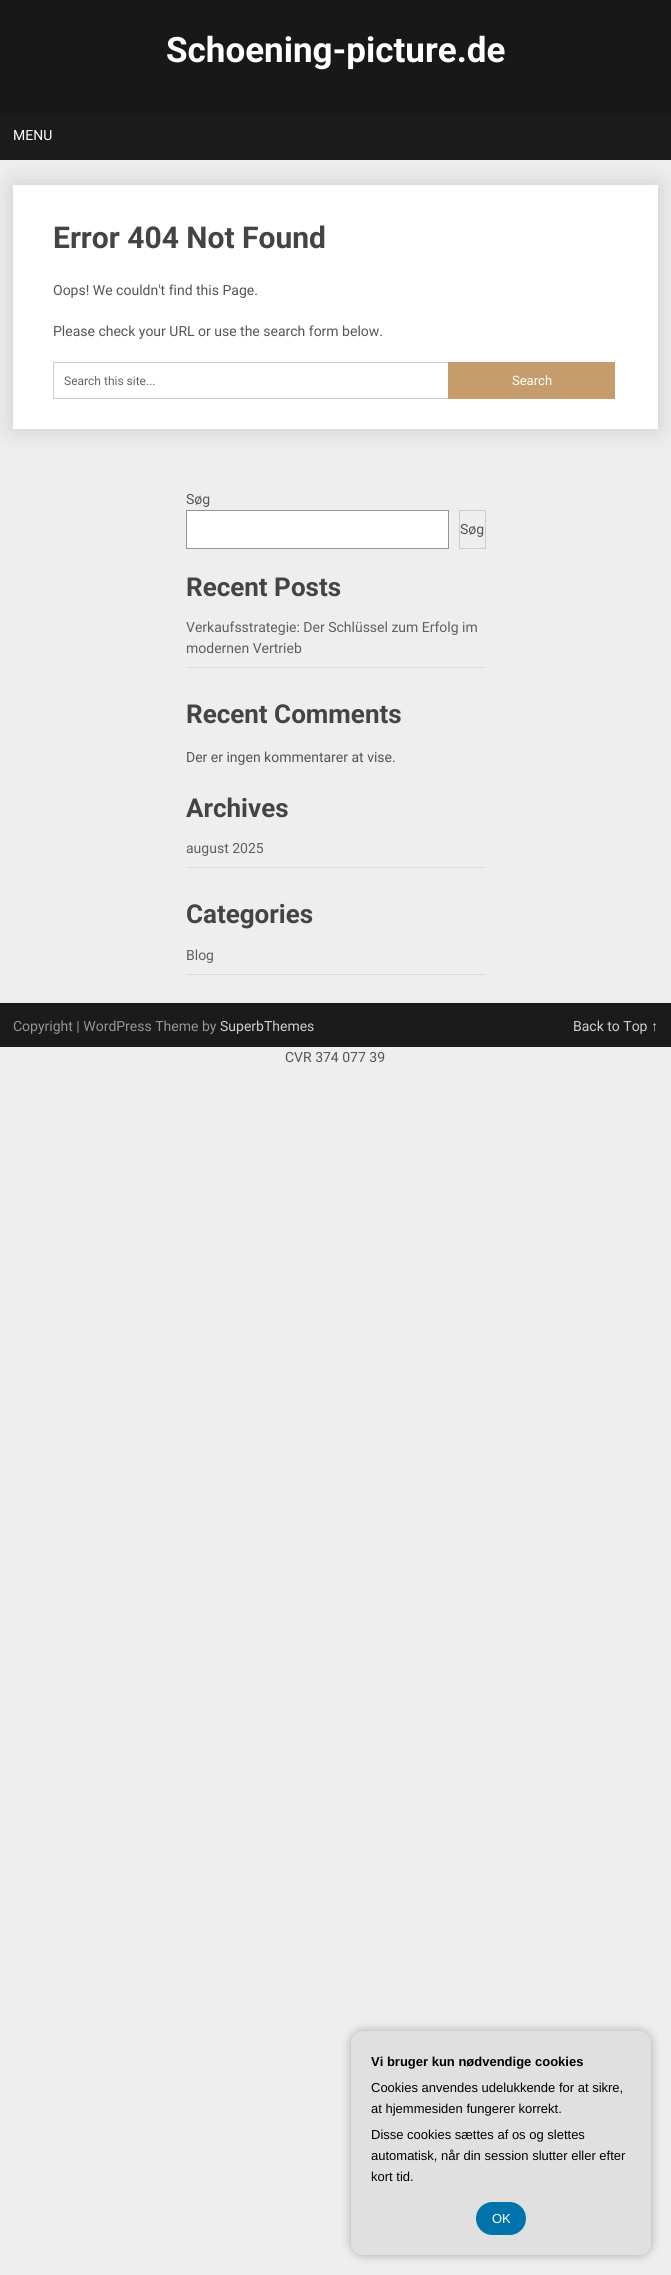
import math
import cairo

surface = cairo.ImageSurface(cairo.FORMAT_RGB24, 671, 2275)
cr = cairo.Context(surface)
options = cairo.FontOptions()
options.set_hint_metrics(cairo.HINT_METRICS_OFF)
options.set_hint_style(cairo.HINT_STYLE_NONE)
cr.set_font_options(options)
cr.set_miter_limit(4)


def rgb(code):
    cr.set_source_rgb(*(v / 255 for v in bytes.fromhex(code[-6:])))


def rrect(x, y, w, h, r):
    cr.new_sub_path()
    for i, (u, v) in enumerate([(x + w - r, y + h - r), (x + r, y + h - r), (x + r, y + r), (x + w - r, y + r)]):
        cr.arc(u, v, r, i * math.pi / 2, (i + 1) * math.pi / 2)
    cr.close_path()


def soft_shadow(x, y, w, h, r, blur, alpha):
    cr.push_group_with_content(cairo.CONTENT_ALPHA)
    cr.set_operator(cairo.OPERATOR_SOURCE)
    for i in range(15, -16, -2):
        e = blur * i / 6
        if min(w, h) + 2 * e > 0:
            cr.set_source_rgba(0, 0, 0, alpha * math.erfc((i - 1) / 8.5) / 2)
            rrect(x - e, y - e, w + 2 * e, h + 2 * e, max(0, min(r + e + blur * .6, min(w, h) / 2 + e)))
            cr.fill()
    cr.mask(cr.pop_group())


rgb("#eeeeee")
cr.paint()
rgb("#181818")
cr.rectangle(0, 0, 671, 115)
cr.fill()
rgb("#000000")
soft_shadow(13, 185, 645, 244, 0, 12.5, 0.15)
for x, y, w, h, color in [
    (0, 115, 671, 45, "#1b1b1b"),
    (13, 185, 645, 244, "#ffffff"),
    (53, 362, 395, 1, "#cccccc"),
    (53, 398, 395, 1, "#cccccc"),
    (53, 362, 1, 37, "#cccccc"),
    (448, 362, 167, 37, "#c69c6d"),
]:
    rgb(color)
    cr.rectangle(x, y, w, h)
    cr.fill()
rgb("#ffffff")
cr.rectangle(186.5, 510.5, 262, 38)
cr.fill_preserve()
rgb("#949494")
cr.set_line_width(1)
cr.stroke()
cr.rectangle(459.5, 510.5, 26, 38)
rgb("#cccccc")
cr.stroke()
for x, y, w, h, color in [
    (186, 667, 300, 1, "#dbdbdb"),
    (186, 867, 300, 1, "#dbdbdb"),
    (186, 974, 300, 1, "#dbdbdb"),
    (0, 1004, 671, 43, "#1b1b1b"),
    (0, 1003, 671, 1, "#181818"),
]:
    rgb(color)
    cr.rectangle(x, y, w, h)
    cr.fill()
rgb("#000000")
soft_shadow(351, 2031, 300, 224, 12, 5, 0.3)
rgb("#e0e0e0")
rrect(351, 2031, 300, 224, 12)
cr.fill()
rgb("#0073aa")
rrect(476, 2202, 50, 33, 16.5)
cr.fill()
cr.select_font_face("Roboto", cairo.FONT_SLANT_NORMAL, cairo.FONT_WEIGHT_BOLD)
cr.set_font_size(35)
rgb("#ffffff")
cr.move_to(166, 62)
cr.show_text("Schoening-picture.de")
cr.select_font_face("Roboto")
cr.set_font_size(14)
cr.move_to(13, 140)
cr.show_text("MENU")
cr.select_font_face("Roboto", cairo.FONT_SLANT_NORMAL, cairo.FONT_WEIGHT_BOLD)
cr.set_font_size(30)
rgb("#444444")
cr.move_to(53, 248)
cr.show_text("Error 404 Not Found")
cr.select_font_face("Roboto")
cr.set_font_size(14)
rgb("#555555")
cr.move_to(53, 295)
cr.show_text("Oops! We couldn't find this Page.")
cr.move_to(53, 336)
cr.show_text("Please check your URL or use the search form below.")
cr.set_font_size(12)
rgb("#5e656d")
cr.move_to(64, 385)
cr.show_text("Search this site...")
cr.set_font_size(13)
rgb("#ffffff")
cr.move_to(512, 385)
cr.show_text("Search")
cr.set_font_size(14)
rgb("#555555")
cr.move_to(186, 504)
cr.show_text("Søg")
cr.move_to(460, 534)
cr.show_text("Søg")
cr.select_font_face("Roboto", cairo.FONT_SLANT_NORMAL, cairo.FONT_WEIGHT_BOLD)
cr.set_font_size(26)
rgb("#444444")
cr.move_to(186, 596)
cr.show_text("Recent Posts")
cr.select_font_face("Roboto")
cr.set_font_size(14)
rgb("#5f5f5f")
cr.move_to(186, 632)
cr.show_text("Verkaufsstrategie: Der Schlüssel zum Erfolg im")
cr.move_to(186, 653)
cr.show_text("modernen Vertrieb")
cr.select_font_face("Roboto", cairo.FONT_SLANT_NORMAL, cairo.FONT_WEIGHT_BOLD)
cr.set_font_size(26)
rgb("#444444")
cr.move_to(186, 723)
cr.show_text("Recent Comments")
cr.select_font_face("Roboto")
cr.set_font_size(14)
rgb("#555555")
cr.move_to(186, 762)
cr.show_text("Der er ingen kommentarer at vise.")
cr.select_font_face("Roboto", cairo.FONT_SLANT_NORMAL, cairo.FONT_WEIGHT_BOLD)
cr.set_font_size(26)
rgb("#444444")
cr.move_to(186, 817)
cr.show_text("Archives")
cr.select_font_face("Roboto")
cr.set_font_size(14)
rgb("#5f5f5f")
cr.move_to(186, 853)
cr.show_text("august 2025")
cr.select_font_face("Roboto", cairo.FONT_SLANT_NORMAL, cairo.FONT_WEIGHT_BOLD)
cr.set_font_size(26)
rgb("#444444")
cr.move_to(186, 923)
cr.show_text("Categories")
cr.select_font_face("Roboto")
cr.set_font_size(14)
rgb("#5f5f5f")
cr.move_to(186, 960)
cr.show_text("Blog")
rgb("#979494")
cr.move_to(13, 1031)
cr.show_text("Copyright | WordPress Theme by")
rgb("#cfcfcf")
cr.move_to(220, 1031)
cr.show_text("SuperbThemes")
cr.move_to(573, 1031)
cr.show_text("Back to Top")
cr.select_font_face("Liberation Sans")
cr.move_to(651, 1031)
cr.show_text("↑")
cr.select_font_face("Roboto")
rgb("#555555")
cr.move_to(285, 1062)
cr.show_text("CVR 374 077 39")
cr.select_font_face("Liberation Sans", cairo.FONT_SLANT_NORMAL, cairo.FONT_WEIGHT_BOLD)
cr.set_font_size(13)
rgb("#000000")
cr.move_to(371, 2066)
cr.show_text("Vi bruger kun nødvendige cookies")
cr.select_font_face("Liberation Sans")
for x, y, s in [
    (371, 2092, "Cookies anvendes udelukkende for at sikre,"),
    (371, 2113, "at hjemmesiden fungerer korrekt."),
    (371, 2139, "Disse cookies sættes af os og slettes"),
    (371, 2160, "automatisk, når din session slutter eller efter"),
    (371, 2181, "kort tid."),
]:
    cr.move_to(x, y)
    cr.show_text(s)
rgb("#ffffff")
cr.move_to(492, 2223)
cr.show_text("OK")
surface.write_to_png("page.png")
